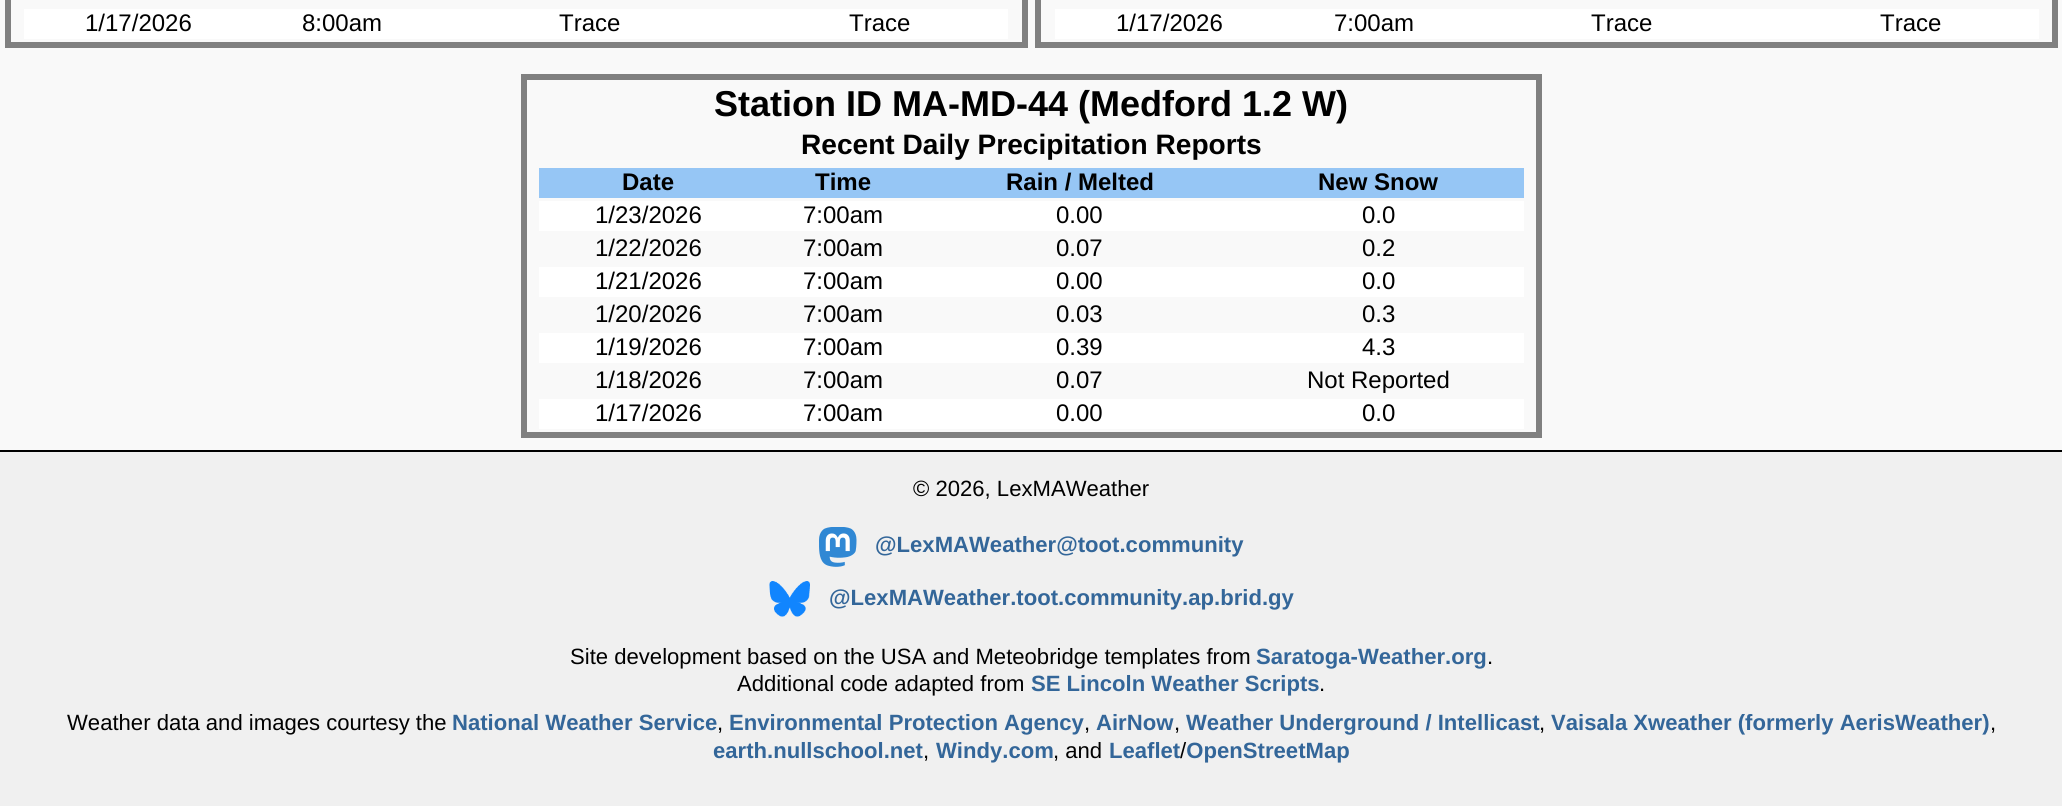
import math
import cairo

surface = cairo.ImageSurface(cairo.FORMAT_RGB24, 2062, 806)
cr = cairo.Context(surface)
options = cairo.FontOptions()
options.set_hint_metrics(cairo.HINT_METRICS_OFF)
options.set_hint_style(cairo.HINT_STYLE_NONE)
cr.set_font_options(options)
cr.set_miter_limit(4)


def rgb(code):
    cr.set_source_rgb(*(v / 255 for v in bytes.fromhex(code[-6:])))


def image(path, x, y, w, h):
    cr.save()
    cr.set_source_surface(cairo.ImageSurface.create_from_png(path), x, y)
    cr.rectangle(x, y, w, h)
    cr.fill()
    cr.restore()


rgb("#f0f0f0")
cr.paint()
rgb("#f9f9f9")
cr.rectangle(0, 0, 2062, 450)
cr.fill()
cr.rectangle(8, -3, 1017, 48)
rgb("#808080")
cr.set_line_width(6)
cr.stroke()
rgb("#ffffff")
cr.rectangle(24, 9, 984, 30)
cr.fill()
cr.rectangle(1038, -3, 1017, 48)
rgb("#808080")
cr.stroke()
rgb("#ffffff")
cr.rectangle(1055, 9, 984, 30)
cr.fill()
cr.rectangle(524, 77, 1015, 358)
rgb("#808080")
cr.stroke()
for x, y, w, h, color in [
    (539, 168, 985, 30, "#96c6f5"),
    (539, 201, 985, 30, "#ffffff"),
    (539, 267, 985, 30, "#ffffff"),
    (539, 333, 985, 30, "#ffffff"),
    (539, 399, 985, 30, "#ffffff"),
    (0, 450, 2062, 2, "#000000"),
]:
    rgb(color)
    cr.rectangle(x, y, w, h)
    cr.fill()
image("img/1.png", 819, 527, 38, 40)
image("img/2.png", 769, 581, 41, 36)
cr.select_font_face("Liberation Sans")
cr.set_font_size(24)
for x, y, s in [
    (85, 31, "1/17/2026"),
    (302, 31, "8:00am"),
    (559, 31, "Trace"),
    (849, 31, "Trace"),
    (1116, 31, "1/17/2026"),
    (1334, 31, "7:00am"),
    (1591, 31, "Trace"),
    (1880, 31, "Trace"),
]:
    cr.move_to(x, y)
    cr.show_text(s)
cr.select_font_face("Liberation Sans", cairo.FONT_SLANT_NORMAL, cairo.FONT_WEIGHT_BOLD)
cr.set_font_size(36)
cr.move_to(714, 116)
cr.show_text("Station ID MA-MD-44 (Medford 1.2 W)")
cr.set_font_size(28.1)
cr.move_to(801, 154)
cr.show_text("Recent Daily Precipitation Reports")
cr.set_font_size(24)
for x, y, s in [
    (622, 190, "Date"),
    (815, 190, "Time"),
    (1006, 190, "Rain / Melted"),
    (1318, 190, "New Snow"),
]:
    cr.move_to(x, y)
    cr.show_text(s)
cr.select_font_face("Liberation Sans")
for x, y, s in [
    (595, 223, "1/23/2026"),
    (803, 223, "7:00am"),
    (1056, 223, "0.00"),
    (1362, 223, "0.0"),
    (595, 256, "1/22/2026"),
    (803, 256, "7:00am"),
    (1056, 256, "0.07"),
    (1362, 256, "0.2"),
    (595, 289, "1/21/2026"),
    (803, 289, "7:00am"),
    (1056, 289, "0.00"),
    (1362, 289, "0.0"),
    (595, 322, "1/20/2026"),
    (803, 322, "7:00am"),
    (1056, 322, "0.03"),
    (1362, 322, "0.3"),
    (595, 355, "1/19/2026"),
    (803, 355, "7:00am"),
    (1056, 355, "0.39"),
    (1362, 355, "4.3"),
    (595, 388, "1/18/2026"),
    (803, 388, "7:00am"),
    (1056, 388, "0.07"),
    (1307, 388, "Not Reported"),
    (595, 421, "1/17/2026"),
    (803, 421, "7:00am"),
    (1056, 421, "0.00"),
    (1362, 421, "0.0"),
]:
    cr.move_to(x, y)
    cr.show_text(s)
cr.set_font_size(22.1)
cr.move_to(913, 496)
cr.show_text("© 2026, LexMAWeather")
cr.select_font_face("Liberation Sans", cairo.FONT_SLANT_NORMAL, cairo.FONT_WEIGHT_BOLD)
rgb("#336699")
cr.move_to(875, 552)
cr.show_text("@LexMAWeather@toot.community")
cr.move_to(829, 605)
cr.show_text("@LexMAWeather.toot.community.ap.brid.gy")
cr.select_font_face("Liberation Sans")
rgb("#000000")
cr.move_to(570, 664)
cr.show_text("Site development based on the USA and Meteobridge templates from")
cr.select_font_face("Liberation Sans", cairo.FONT_SLANT_NORMAL, cairo.FONT_WEIGHT_BOLD)
rgb("#336699")
cr.move_to(1256, 664)
cr.show_text("Saratoga-Weather.org")
cr.select_font_face("Liberation Sans")
rgb("#000000")
cr.move_to(1487, 664)
cr.show_text(".")
cr.move_to(737, 691)
cr.show_text("Additional code adapted from")
cr.select_font_face("Liberation Sans", cairo.FONT_SLANT_NORMAL, cairo.FONT_WEIGHT_BOLD)
rgb("#336699")
cr.move_to(1031, 691)
cr.show_text("SE Lincoln Weather Scripts")
cr.select_font_face("Liberation Sans")
rgb("#000000")
cr.move_to(1319, 691)
cr.show_text(".")
cr.move_to(67, 730)
cr.show_text("Weather data and images courtesy the")
cr.select_font_face("Liberation Sans", cairo.FONT_SLANT_NORMAL, cairo.FONT_WEIGHT_BOLD)
rgb("#336699")
cr.move_to(452, 730)
cr.show_text("National Weather Service")
cr.select_font_face("Liberation Sans")
rgb("#000000")
cr.move_to(717, 730)
cr.show_text(",")
cr.select_font_face("Liberation Sans", cairo.FONT_SLANT_NORMAL, cairo.FONT_WEIGHT_BOLD)
rgb("#336699")
cr.move_to(729, 730)
cr.show_text("Environmental Protection Agency")
cr.select_font_face("Liberation Sans")
rgb("#000000")
cr.move_to(1084, 730)
cr.show_text(",")
cr.select_font_face("Liberation Sans", cairo.FONT_SLANT_NORMAL, cairo.FONT_WEIGHT_BOLD)
rgb("#336699")
cr.move_to(1096, 730)
cr.show_text("AirNow")
cr.select_font_face("Liberation Sans")
rgb("#000000")
cr.move_to(1174, 730)
cr.show_text(",")
cr.select_font_face("Liberation Sans", cairo.FONT_SLANT_NORMAL, cairo.FONT_WEIGHT_BOLD)
rgb("#336699")
cr.move_to(1186, 730)
cr.show_text("Weather Underground / Intellicast")
cr.select_font_face("Liberation Sans")
rgb("#000000")
cr.move_to(1539, 730)
cr.show_text(",")
cr.select_font_face("Liberation Sans", cairo.FONT_SLANT_NORMAL, cairo.FONT_WEIGHT_BOLD)
rgb("#336699")
cr.move_to(1551, 730)
cr.show_text("Vaisala Xweather (formerly AerisWeather)")
cr.select_font_face("Liberation Sans")
rgb("#000000")
cr.move_to(1990, 730)
cr.show_text(",")
cr.select_font_face("Liberation Sans", cairo.FONT_SLANT_NORMAL, cairo.FONT_WEIGHT_BOLD)
rgb("#336699")
cr.move_to(713, 758)
cr.show_text("earth.nullschool.net")
cr.move_to(936, 758)
cr.show_text("Windy.com")
cr.select_font_face("Liberation Sans")
rgb("#000000")
cr.move_to(1053, 758)
cr.show_text(", and")
cr.select_font_face("Liberation Sans", cairo.FONT_SLANT_NORMAL, cairo.FONT_WEIGHT_BOLD)
rgb("#336699")
cr.move_to(1109, 758)
cr.show_text("Leaflet OpenStreetMap")
cr.select_font_face("Liberation Sans")
rgb("#000000")
cr.move_to(923, 758)
cr.show_text(",")
cr.move_to(1180, 758)
cr.show_text("/")
surface.write_to_png("page.png")
